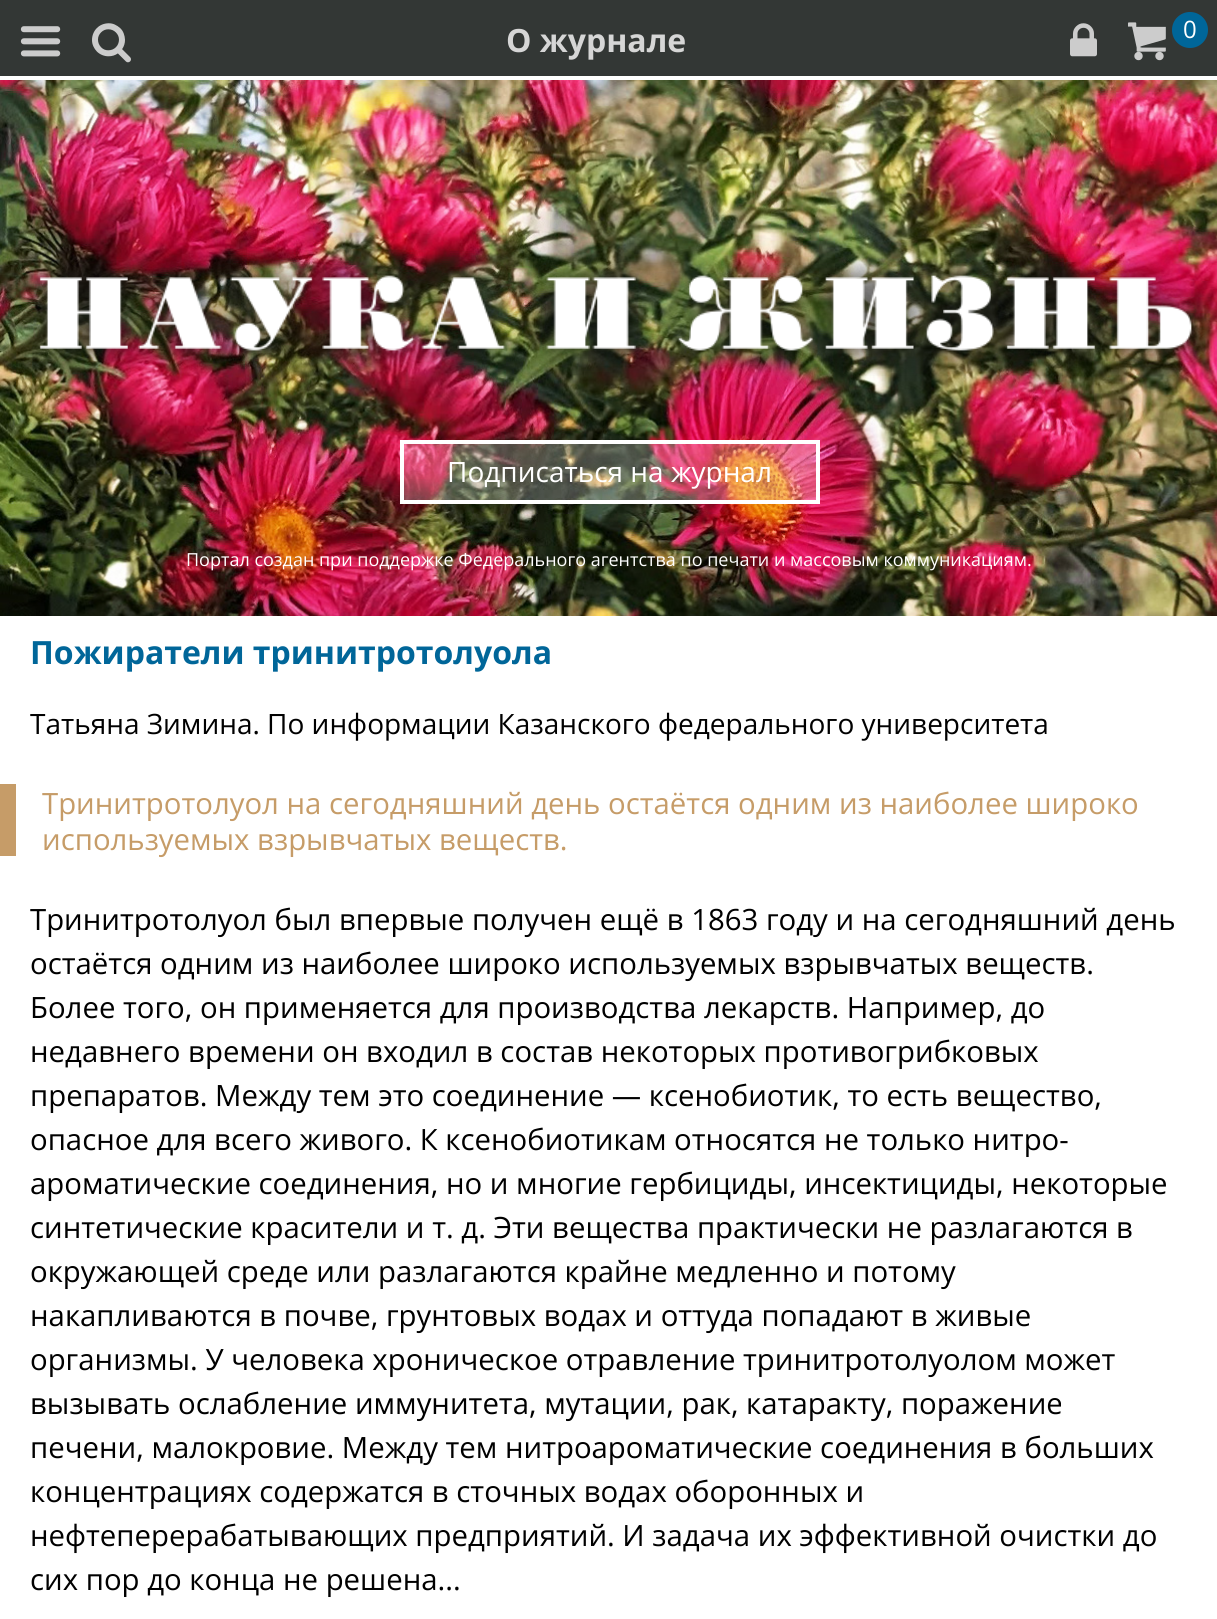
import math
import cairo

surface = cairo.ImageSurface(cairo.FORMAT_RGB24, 1217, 1619)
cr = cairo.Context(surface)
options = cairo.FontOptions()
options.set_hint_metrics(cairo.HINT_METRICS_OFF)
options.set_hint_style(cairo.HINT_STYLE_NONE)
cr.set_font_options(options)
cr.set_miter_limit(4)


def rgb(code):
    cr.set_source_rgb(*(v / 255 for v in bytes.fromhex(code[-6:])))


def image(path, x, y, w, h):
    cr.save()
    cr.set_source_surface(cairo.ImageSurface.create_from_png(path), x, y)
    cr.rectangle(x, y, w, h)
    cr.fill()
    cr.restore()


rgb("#ffffff")
cr.paint()
rgb("#333735")
cr.rectangle(0, 0, 1217, 76)
cr.fill()
image("img/1.png", 20, 26, 41, 31)
image("img/2.png", 92, 23, 39, 40)
image("img/3.png", 1070, 23, 27, 34)
image("img/4.png", 1128, 22, 38, 39)
rgb("#006699")
cr.arc(1190, 30, 18, 0, 2 * math.pi)
cr.fill()
image("img/5.png", 0, 80, 1217, 536)
image("img/6.png", 19, 251, 1184, 125)
cr.set_source_rgba(1, 1, 1, 0.25)
cr.rectangle(402, 442, 416, 60)
cr.fill_preserve()
rgb("#ffffff")
cr.set_line_width(4)
cr.stroke()
rgb("#c69c68")
cr.rectangle(0, 784, 16, 72)
cr.fill()
cr.select_font_face("Open Sans", cairo.FONT_SLANT_NORMAL, cairo.FONT_WEIGHT_BOLD)
cr.set_font_size(32)
rgb("#d6d6d6")
cr.move_to(506, 52)
cr.show_text("О журнале")
cr.select_font_face("Open Sans")
cr.set_font_size(24)
rgb("#ffffff")
cr.move_to(1183, 38)
cr.show_text("0")
cr.set_font_size(28)
cr.move_to(447, 482)
cr.show_text("Подписаться на журнал")
cr.set_font_size(18)
cr.move_to(186, 566)
cr.show_text("Портал создан при поддержке Федерального агентства по печати и массовым коммуникациям.")
cr.select_font_face("Open Sans", cairo.FONT_SLANT_NORMAL, cairo.FONT_WEIGHT_BOLD)
cr.set_font_size(32)
rgb("#006699")
cr.move_to(30, 664)
cr.show_text("Пожиратели тринитротолуола")
cr.select_font_face("Open Sans")
cr.set_font_size(28)
rgb("#000000")
cr.move_to(30, 734)
cr.show_text("Татьяна Зимина. По информации Казанского федерального университета")
cr.set_font_size(29.35)
rgb("#c69c68")
cr.move_to(42, 814)
cr.show_text("Тринитротолуол на сегодняшний день остаётся одним из наиболее широко")
cr.move_to(42, 850)
cr.show_text("используемых взрывчатых веществ.")
rgb("#000000")
for x, y, s in [
    (30, 930, "Тринитротолуол был впервые получен ещё в 1863 году и на сегодняшний день"),
    (30, 974, "остаётся одним из наиболее широко используемых взрывчатых веществ."),
    (30, 1018, "Более того, он применяется для производства лекарств. Например, до"),
    (30, 1062, "недавнего времени он входил в состав некоторых противогрибковых"),
    (30, 1106, "препаратов. Между тем это соединение — ксенобиотик, то есть вещество,"),
    (30, 1150, "опасное для всего живого. К ксенобиотикам относятся не только нитро-"),
    (30, 1194, "ароматические соединения, но и многие гербициды, инсектициды, некоторые"),
    (30, 1238, "синтетические красители и т. д. Эти вещества практически не разлагаются в"),
    (30, 1282, "окружающей среде или разлагаются крайне медленно и потому"),
    (30, 1326, "накапливаются в почве, грунтовых водах и оттуда попадают в живые"),
    (30, 1370, "организмы. У человека хроническое отравление тринитротолуолом может"),
    (30, 1414, "вызывать ослабление иммунитета, мутации, рак, катаракту, поражение"),
    (30, 1458, "печени, малокровие. Между тем нитроароматические соединения в больших"),
    (30, 1502, "концентрациях содержатся в сточных водах оборонных и"),
    (30, 1546, "нефтеперерабатывающих предприятий. И задача их эффективной очистки до"),
    (30, 1590, "сих пор до конца не решена..."),
]:
    cr.move_to(x, y)
    cr.show_text(s)
surface.write_to_png("page.png")
